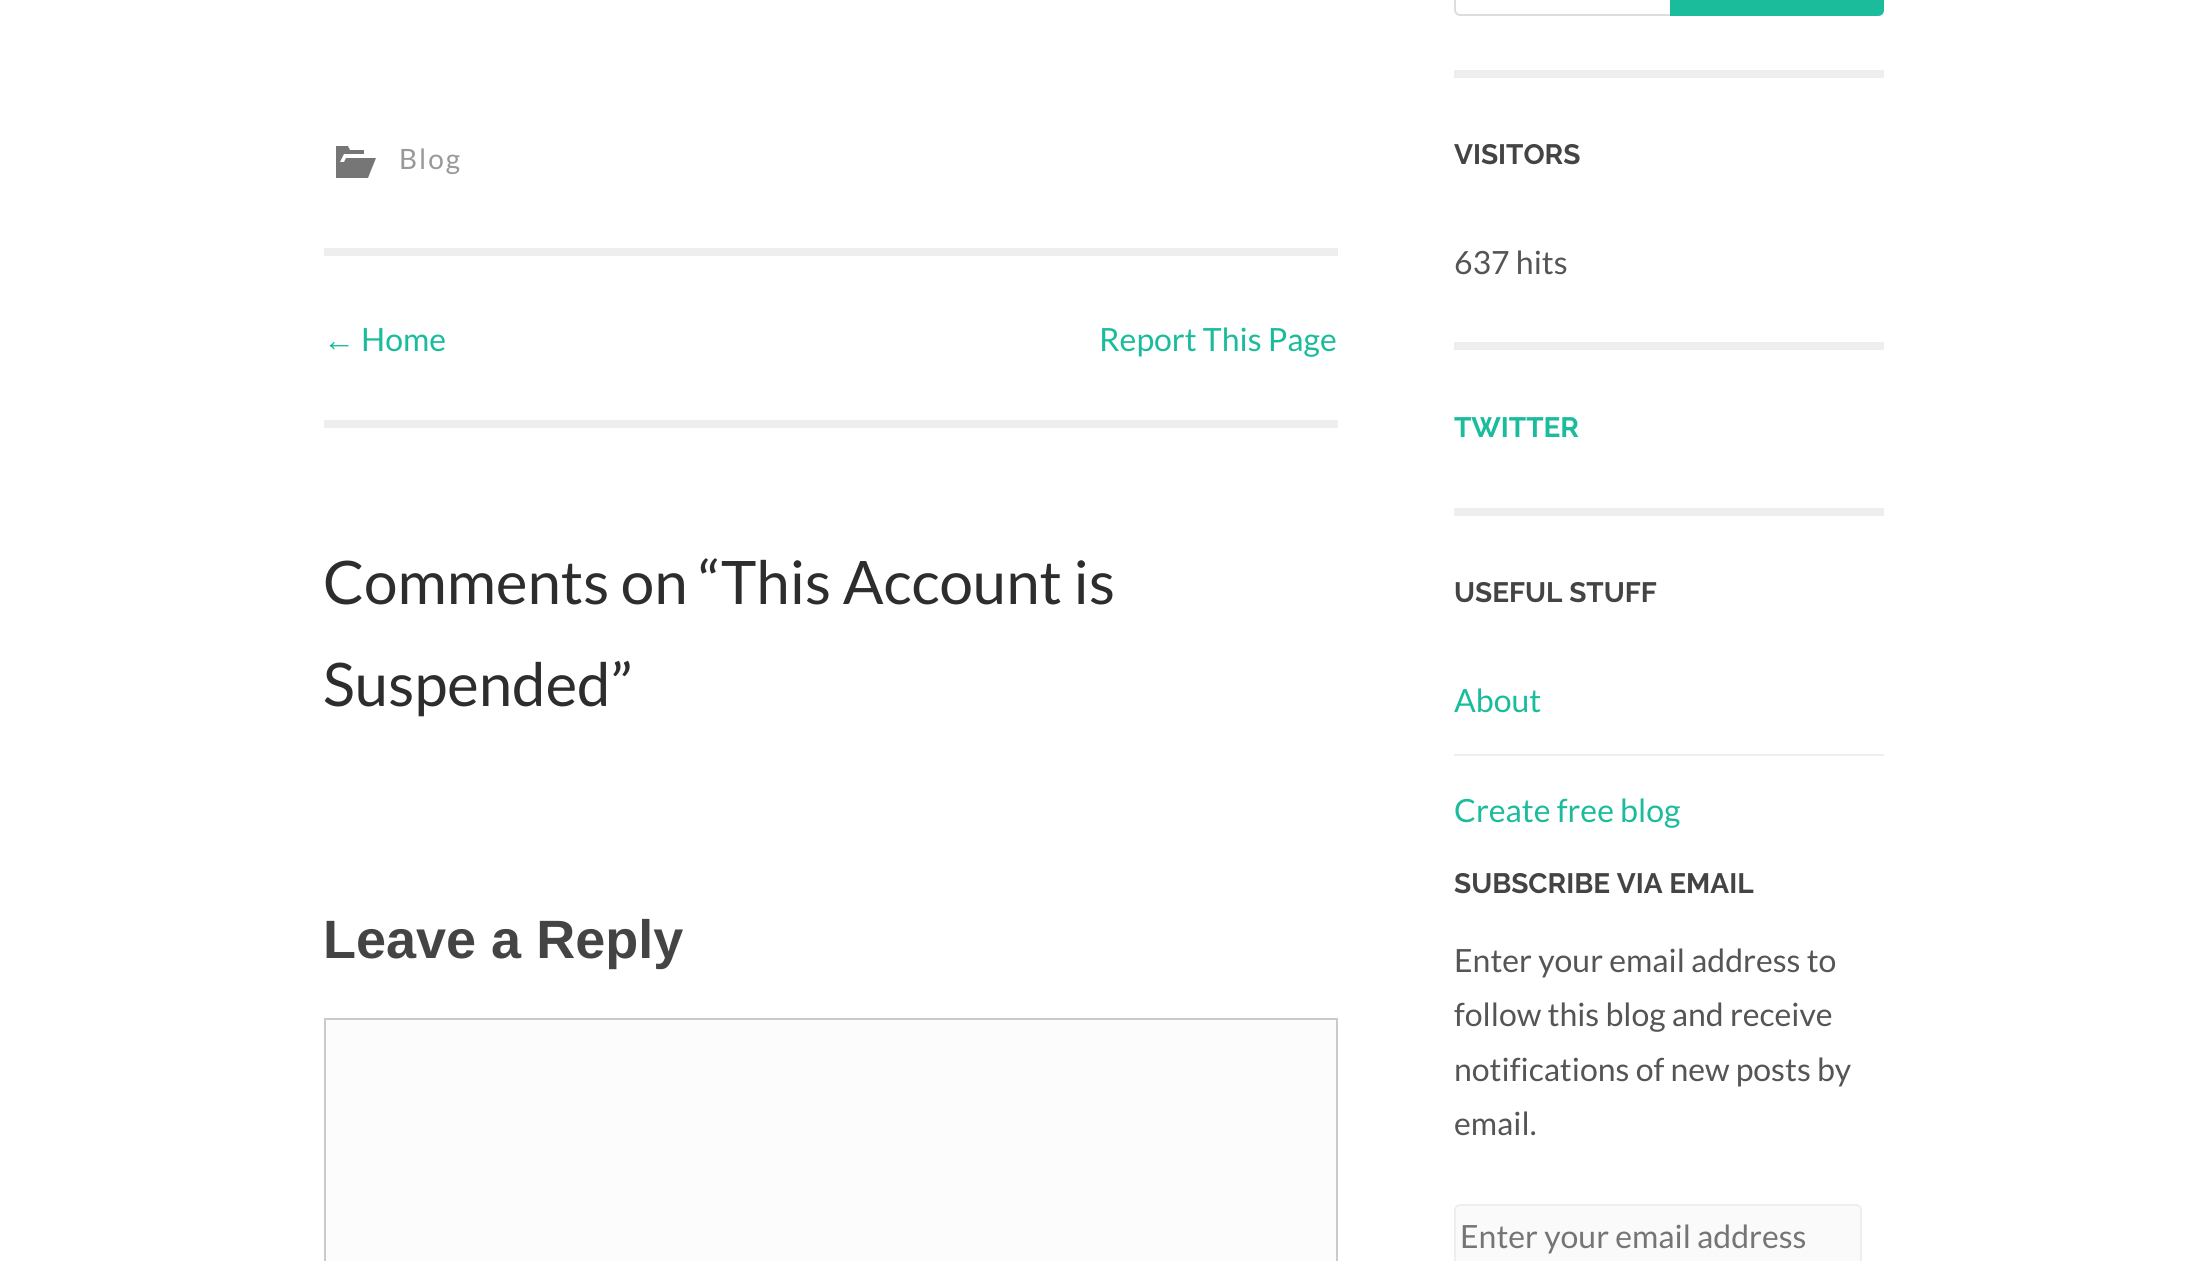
import math
import cairo

surface = cairo.ImageSurface(cairo.FORMAT_RGB24, 2205, 1261)
cr = cairo.Context(surface)
options = cairo.FontOptions()
options.set_hint_metrics(cairo.HINT_METRICS_OFF)
options.set_hint_style(cairo.HINT_STYLE_NONE)
cr.set_font_options(options)
cr.set_miter_limit(4)


def rgb(code):
    cr.set_source_rgb(*(v / 255 for v in bytes.fromhex(code[-6:])))


def tracked(x, y, s, letter, word):
    cr.move_to(x, y)
    for ch in s:
        cr.show_text(ch)
        cr.rel_move_to(letter + word * (ch == ' '), 0)


def rrect(x, y, w, h, r):
    cr.new_sub_path()
    for i, (u, v) in enumerate([(x + w - r, y + h - r), (x + r, y + h - r), (x + r, y + r), (x + w - r, y + r)]):
        cr.arc(u, v, r, i * math.pi / 2, (i + 1) * math.pi / 2)
    cr.close_path()


rgb("#ffffff")
cr.paint()
rgb("#767676")
cr.new_path()
cr.move_to(346, 158)
cr.line_to(376, 158)
cr.line_to(368, 178)
cr.line_to(336, 178)
cr.line_to(336, 146)
cr.line_to(348, 146)
cr.line_to(350, 150)
cr.line_to(364, 150)
cr.line_to(364, 154)
cr.line_to(344, 154)
cr.line_to(340, 162)
cr.line_to(344, 162)
cr.close_path()
cr.fill()
rgb("#eeeeee")
cr.rectangle(324, 248, 1014, 8)
cr.fill()
cr.rectangle(324, 420, 1014, 8)
cr.fill()
rgb("#fcfcfc")
cr.rectangle(325, 1019, 1012, 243)
cr.fill_preserve()
rgb("#cacaca")
cr.stroke()
rgb("#eeeeee")
cr.rectangle(1454, 70, 430, 8)
cr.fill()
rgb("#dddddd")
cr.set_fill_rule(cairo.FILL_RULE_EVEN_ODD)
cr.new_path()
cr.move_to(1460, -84)
cr.line_to(1878, -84)
cr.line_to(1878, 16)
cr.line_to(1460, 16)
cr.curve_to(1457, 16, 1454, 13, 1454, 10)
cr.line_to(1454, -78)
cr.curve_to(1454, -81, 1457, -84, 1460, -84)
cr.close_path()
cr.move_to(1460, -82)
cr.line_to(1878, -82)
cr.line_to(1878, 14)
cr.line_to(1460, 14)
cr.curve_to(1458, 14, 1456, 12, 1456, 10)
cr.line_to(1456, -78)
cr.curve_to(1456, -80, 1458, -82, 1460, -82)
cr.close_path()
cr.fill()
rgb("#1abc9c")
cr.new_path()
cr.move_to(1671, -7)
cr.line_to(1878, -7)
cr.curve_to(1881, -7, 1883, -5, 1883, -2)
cr.line_to(1883, 10)
cr.curve_to(1883, 13, 1881, 15, 1878, 15)
cr.line_to(1671, 15)
cr.close_path()
cr.fill_preserve()
cr.stroke()
for x, y, w, h, color in [
    (1454, 342, 430, 8, "#eeeeee"),
    (1454, 508, 430, 8, "#eeeeee"),
    (1454, 754, 430, 2, "#eeeeee"),
]:
    rgb(color)
    cr.rectangle(x, y, w, h)
    cr.fill()
rgb("#fafafa")
rrect(1455, 1205, 406, 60, 5)
cr.fill_preserve()
rgb("#eeeeee")
cr.stroke()
cr.select_font_face("Lato")
cr.set_font_size(28)
rgb("#999999")
tracked(399, 169, "Blog", 2, 0)
cr.select_font_face("Liberation Sans")
cr.set_font_size(32)
rgb("#1abc9c")
cr.move_to(323, 351)
cr.show_text("←")
cr.select_font_face("Lato")
cr.move_to(361, 351)
cr.show_text("Home")
cr.move_to(1099, 351)
cr.show_text("Report This Page")
cr.set_font_size(60)
rgb("#2d2d2d")
cr.move_to(323, 604)
cr.show_text("Comments on “This Account is")
cr.move_to(323, 706)
cr.show_text("Suspended”")
cr.select_font_face("Liberation Sans", cairo.FONT_SLANT_NORMAL, cairo.FONT_WEIGHT_BOLD)
cr.set_font_size(54)
rgb("#444444")
cr.move_to(323, 958)
cr.show_text("Leave a Reply")
cr.select_font_face("Raleway", cairo.FONT_SLANT_NORMAL, cairo.FONT_WEIGHT_BOLD)
cr.set_font_size(28)
cr.move_to(1454, 164)
cr.show_text("VISITORS")
cr.select_font_face("Lato")
cr.set_font_size(32)
rgb("#555555")
cr.move_to(1454, 274)
cr.show_text("637 hits")
cr.select_font_face("Raleway", cairo.FONT_SLANT_NORMAL, cairo.FONT_WEIGHT_BOLD)
cr.set_font_size(28)
rgb("#1abc9c")
cr.move_to(1454, 437)
cr.show_text("TWITTER")
rgb("#444444")
cr.move_to(1454, 602)
cr.show_text("USEFUL STUFF")
cr.select_font_face("Lato")
cr.set_font_size(32)
rgb("#1abc9c")
cr.move_to(1454, 712)
cr.show_text("About")
cr.move_to(1454, 822)
cr.show_text("Create free blog")
cr.select_font_face("Raleway", cairo.FONT_SLANT_NORMAL, cairo.FONT_WEIGHT_BOLD)
cr.set_font_size(28)
rgb("#444444")
cr.move_to(1454, 893)
cr.show_text("SUBSCRIBE VIA EMAIL")
cr.select_font_face("Lato")
cr.set_font_size(32)
rgb("#555555")
for x, y, s in [
    (1454, 972, "Enter your email address to"),
    (1454, 1026, "follow this blog and receive"),
    (1454, 1081, "notifications of new posts by"),
    (1454, 1135, "email."),
]:
    cr.move_to(x, y)
    cr.show_text(s)
rgb("#757575")
cr.move_to(1460, 1248)
cr.show_text("Enter your email address")
surface.write_to_png("page.png")
